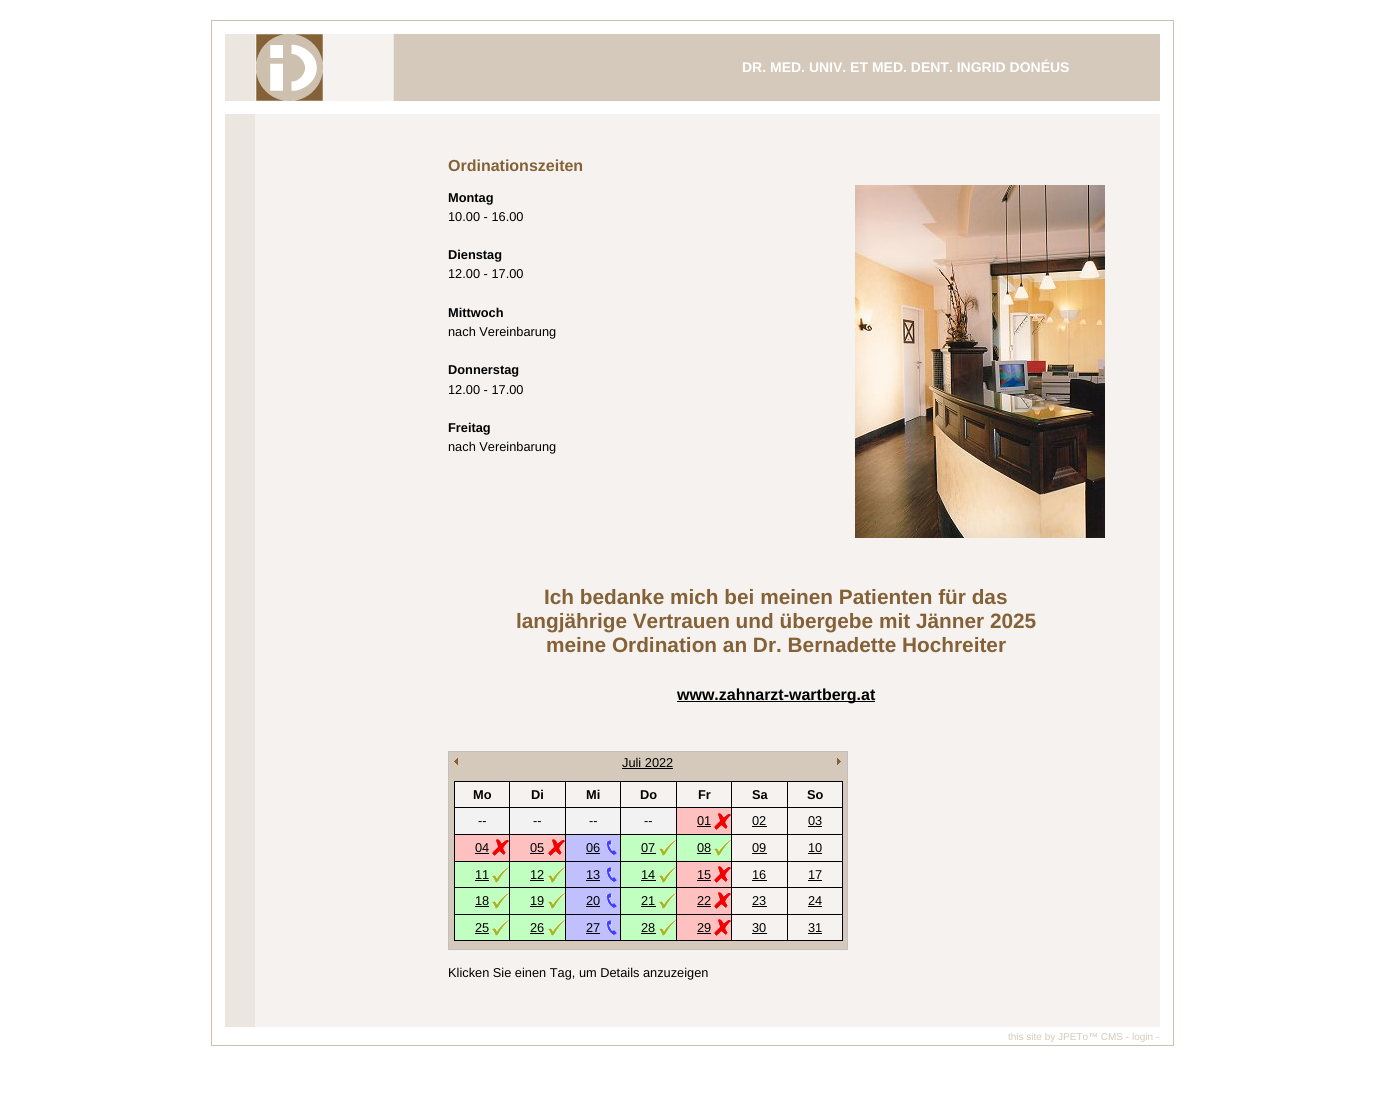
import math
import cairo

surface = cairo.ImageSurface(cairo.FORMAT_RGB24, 1385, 1112)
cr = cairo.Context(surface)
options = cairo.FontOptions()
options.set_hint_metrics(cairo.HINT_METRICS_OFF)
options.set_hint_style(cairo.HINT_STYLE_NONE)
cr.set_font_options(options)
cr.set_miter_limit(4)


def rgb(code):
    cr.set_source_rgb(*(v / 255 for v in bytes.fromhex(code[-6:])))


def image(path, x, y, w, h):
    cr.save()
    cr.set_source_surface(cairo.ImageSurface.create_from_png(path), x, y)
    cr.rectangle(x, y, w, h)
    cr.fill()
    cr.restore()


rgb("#ffffff")
cr.paint()
cr.rectangle(211.5, 20.5, 962, 1025)
rgb("#cec0af")
cr.set_line_width(1)
cr.stroke()
rgb("#d5c9bb")
cr.rectangle(394, 34, 766, 67)
cr.fill()
image("img/1.png", 225, 34, 169, 67)
image("img/2.png", 256, 34, 67, 67)
image("img/3.png", 225, 114, 168, 913)
rgb("#f5f2ef")
cr.rectangle(393, 114, 767, 913)
cr.fill()
image("img/4.png", 855, 185, 250, 353)
rgb("#000000")
cr.rectangle(677, 701, 198, 1)
cr.fill()
rgb("#d5c9bb")
cr.rectangle(448.5, 751.5, 399, 198)
cr.fill_preserve()
rgb("#c0c0c0")
cr.stroke()
image("img/5.png", 454, 758, 4, 7)
rgb("#000000")
cr.rectangle(622, 768, 51, 1)
cr.fill()
image("img/6.png", 837, 758, 4, 7)
for x, y, w, h, color in [
    (455, 782, 387, 158, "#f5f2ef"),
    (787, 781, 56, 1, "#000000"),
    (787, 807, 56, 1, "#000000"),
    (787, 834, 56, 1, "#000000"),
    (787, 861, 56, 1, "#000000"),
    (787, 887, 56, 1, "#000000"),
    (787, 914, 56, 1, "#000000"),
    (842, 914, 1, 27, "#000000"),
    (787, 940, 56, 1, "#000000"),
    (787, 914, 1, 27, "#000000"),
    (731, 914, 57, 1, "#000000"),
    (787, 887, 1, 28, "#000000"),
    (731, 887, 57, 1, "#000000"),
    (787, 861, 1, 27, "#000000"),
    (731, 861, 57, 1, "#000000"),
    (787, 834, 1, 28, "#000000"),
    (731, 834, 57, 1, "#000000"),
    (787, 807, 1, 28, "#000000"),
    (731, 807, 57, 1, "#000000"),
    (787, 781, 1, 27, "#000000"),
    (731, 781, 57, 1, "#000000"),
    (731, 940, 57, 1, "#000000"),
    (731, 914, 1, 27, "#000000"),
    (676, 914, 56, 1, "#000000"),
    (731, 887, 1, 28, "#000000"),
    (676, 887, 56, 1, "#000000"),
    (731, 861, 1, 27, "#000000"),
    (676, 861, 56, 1, "#000000"),
    (731, 834, 1, 28, "#000000"),
    (676, 834, 56, 1, "#000000"),
    (731, 807, 1, 28, "#000000"),
    (676, 807, 56, 1, "#000000"),
    (731, 781, 1, 27, "#000000"),
    (676, 781, 56, 1, "#000000"),
    (676, 940, 56, 1, "#000000"),
    (676, 914, 1, 27, "#000000"),
    (620, 914, 57, 1, "#000000"),
    (676, 887, 1, 28, "#000000"),
    (620, 887, 57, 1, "#000000"),
    (676, 861, 1, 27, "#000000"),
    (620, 861, 57, 1, "#000000"),
    (676, 834, 1, 28, "#000000"),
    (620, 834, 57, 1, "#000000"),
    (676, 807, 1, 28, "#000000"),
    (620, 807, 57, 1, "#000000"),
    (676, 781, 1, 27, "#000000"),
    (620, 781, 57, 1, "#000000"),
    (620, 940, 57, 1, "#000000"),
    (620, 914, 1, 27, "#000000"),
    (565, 914, 56, 1, "#000000"),
    (620, 887, 1, 28, "#000000"),
    (565, 887, 56, 1, "#000000"),
    (620, 861, 1, 27, "#000000"),
    (565, 861, 56, 1, "#000000"),
    (620, 834, 1, 28, "#000000"),
    (565, 834, 56, 1, "#000000"),
    (620, 807, 1, 28, "#000000"),
    (565, 807, 56, 1, "#000000"),
    (620, 781, 1, 27, "#000000"),
    (565, 781, 56, 1, "#000000"),
    (565, 940, 56, 1, "#000000"),
    (565, 914, 1, 27, "#000000"),
    (509, 914, 57, 1, "#000000"),
    (565, 887, 1, 28, "#000000"),
    (509, 887, 57, 1, "#000000"),
    (565, 861, 1, 27, "#000000"),
    (509, 861, 57, 1, "#000000"),
    (565, 834, 1, 28, "#000000"),
    (509, 834, 57, 1, "#000000"),
    (565, 807, 1, 28, "#000000"),
    (509, 807, 57, 1, "#000000"),
    (565, 781, 1, 27, "#000000"),
    (509, 781, 57, 1, "#000000"),
    (509, 940, 57, 1, "#000000"),
    (509, 914, 1, 27, "#000000"),
    (454, 914, 56, 1, "#000000"),
    (509, 887, 1, 28, "#000000"),
    (454, 887, 56, 1, "#000000"),
    (509, 861, 1, 27, "#000000"),
    (454, 861, 56, 1, "#000000"),
    (509, 834, 1, 28, "#000000"),
    (454, 834, 56, 1, "#000000"),
    (509, 807, 1, 28, "#000000"),
    (454, 807, 56, 1, "#000000"),
    (509, 781, 1, 27, "#000000"),
    (454, 781, 56, 1, "#000000"),
    (454, 940, 56, 1, "#000000"),
    (454, 914, 1, 27, "#000000"),
    (454, 887, 1, 28, "#000000"),
    (454, 861, 1, 27, "#000000"),
    (454, 834, 1, 28, "#000000"),
    (454, 807, 1, 28, "#000000"),
    (454, 781, 1, 27, "#000000"),
    (842, 887, 1, 28, "#000000"),
    (842, 861, 1, 27, "#000000"),
    (842, 834, 1, 28, "#000000"),
    (842, 807, 1, 28, "#000000"),
    (842, 781, 1, 27, "#000000"),
    (455, 808, 54, 26, "#f2f2f2"),
    (510, 808, 55, 26, "#f2f2f2"),
    (566, 808, 54, 26, "#f2f2f2"),
    (621, 808, 55, 26, "#f2f2f2"),
    (677, 808, 54, 26, "#ffc0c0"),
]:
    rgb(color)
    cr.rectangle(x, y, w, h)
    cr.fill()
image("img/7.png", 714, 813, 17, 17)
for x, y, w, h, color in [
    (697, 826, 14, 1, "#000000"),
    (752, 826, 15, 1, "#000000"),
    (808, 826, 14, 1, "#000000"),
    (455, 835, 54, 26, "#ffc0c0"),
]:
    rgb(color)
    cr.rectangle(x, y, w, h)
    cr.fill()
image("img/7.png", 492, 839, 17, 17)
rgb("#000000")
cr.rectangle(475, 853, 14, 1)
cr.fill()
rgb("#ffc0c0")
cr.rectangle(510, 835, 55, 26)
cr.fill()
image("img/7.png", 548, 839, 17, 17)
rgb("#000000")
cr.rectangle(530, 853, 14, 1)
cr.fill()
rgb("#c0c0ff")
cr.rectangle(566, 835, 54, 26)
cr.fill()
image("img/8.png", 606, 840, 11, 15)
rgb("#000000")
cr.rectangle(586, 853, 14, 1)
cr.fill()
rgb("#c0ffc0")
cr.rectangle(621, 835, 55, 26)
cr.fill()
image("img/9.png", 659, 840, 17, 16)
rgb("#000000")
cr.rectangle(641, 853, 15, 1)
cr.fill()
rgb("#c0ffc0")
cr.rectangle(677, 835, 54, 26)
cr.fill()
image("img/9.png", 714, 840, 17, 16)
for x, y, w, h, color in [
    (697, 853, 14, 1, "#000000"),
    (752, 853, 15, 1, "#000000"),
    (808, 853, 14, 1, "#000000"),
    (455, 862, 54, 25, "#c0ffc0"),
]:
    rgb(color)
    cr.rectangle(x, y, w, h)
    cr.fill()
image("img/9.png", 492, 867, 17, 16)
rgb("#000000")
cr.rectangle(475, 880, 14, 1)
cr.fill()
rgb("#c0ffc0")
cr.rectangle(510, 862, 55, 25)
cr.fill()
image("img/9.png", 548, 867, 17, 16)
rgb("#000000")
cr.rectangle(530, 880, 14, 1)
cr.fill()
rgb("#c0c0ff")
cr.rectangle(566, 862, 54, 25)
cr.fill()
image("img/8.png", 606, 867, 11, 15)
rgb("#000000")
cr.rectangle(586, 880, 14, 1)
cr.fill()
rgb("#c0ffc0")
cr.rectangle(621, 862, 55, 25)
cr.fill()
image("img/9.png", 659, 867, 17, 16)
rgb("#000000")
cr.rectangle(641, 880, 15, 1)
cr.fill()
rgb("#ffc0c0")
cr.rectangle(677, 862, 54, 25)
cr.fill()
image("img/7.png", 714, 866, 17, 17)
for x, y, w, h, color in [
    (697, 880, 14, 1, "#000000"),
    (752, 880, 15, 1, "#000000"),
    (808, 880, 14, 1, "#000000"),
    (455, 888, 54, 26, "#c0ffc0"),
]:
    rgb(color)
    cr.rectangle(x, y, w, h)
    cr.fill()
image("img/9.png", 492, 893, 17, 16)
rgb("#000000")
cr.rectangle(475, 906, 14, 1)
cr.fill()
rgb("#c0ffc0")
cr.rectangle(510, 888, 55, 26)
cr.fill()
image("img/9.png", 548, 893, 17, 16)
rgb("#000000")
cr.rectangle(530, 906, 14, 1)
cr.fill()
rgb("#c0c0ff")
cr.rectangle(566, 888, 54, 26)
cr.fill()
image("img/8.png", 606, 893, 11, 15)
rgb("#000000")
cr.rectangle(586, 906, 14, 1)
cr.fill()
rgb("#c0ffc0")
cr.rectangle(621, 888, 55, 26)
cr.fill()
image("img/9.png", 659, 893, 17, 16)
rgb("#000000")
cr.rectangle(641, 906, 15, 1)
cr.fill()
rgb("#ffc0c0")
cr.rectangle(677, 888, 54, 26)
cr.fill()
image("img/7.png", 714, 892, 17, 17)
for x, y, w, h, color in [
    (697, 906, 14, 1, "#000000"),
    (752, 906, 15, 1, "#000000"),
    (808, 906, 14, 1, "#000000"),
    (455, 915, 54, 25, "#c0ffc0"),
]:
    rgb(color)
    cr.rectangle(x, y, w, h)
    cr.fill()
image("img/9.png", 492, 920, 17, 16)
rgb("#000000")
cr.rectangle(475, 933, 14, 1)
cr.fill()
rgb("#c0ffc0")
cr.rectangle(510, 915, 55, 25)
cr.fill()
image("img/9.png", 548, 920, 17, 16)
rgb("#000000")
cr.rectangle(530, 933, 14, 1)
cr.fill()
rgb("#c0c0ff")
cr.rectangle(566, 915, 54, 25)
cr.fill()
image("img/8.png", 606, 920, 11, 15)
rgb("#000000")
cr.rectangle(586, 933, 14, 1)
cr.fill()
rgb("#c0ffc0")
cr.rectangle(621, 915, 55, 25)
cr.fill()
image("img/9.png", 659, 920, 17, 16)
rgb("#000000")
cr.rectangle(641, 933, 15, 1)
cr.fill()
rgb("#ffc0c0")
cr.rectangle(677, 915, 54, 25)
cr.fill()
image("img/7.png", 714, 919, 17, 17)
for x, y, w, h, color in [
    (697, 933, 14, 1, "#000000"),
    (752, 933, 15, 1, "#000000"),
    (808, 933, 14, 1, "#000000"),
]:
    rgb(color)
    cr.rectangle(x, y, w, h)
    cr.fill()
cr.select_font_face("Liberation Sans", cairo.FONT_SLANT_NORMAL, cairo.FONT_WEIGHT_BOLD)
cr.set_font_size(14)
rgb("#ffffff")
cr.move_to(742, 72)
cr.show_text("DR. MED. UNIV. ET MED. DENT. INGRID DONÉUS")
cr.set_font_size(16)
rgb("#846136")
cr.move_to(448, 171)
cr.show_text("Ordinationszeiten")
cr.set_font_size(12.8)
rgb("#000000")
cr.move_to(448, 202)
cr.show_text("Montag")
cr.select_font_face("Liberation Sans")
cr.move_to(448, 221)
cr.show_text("10.00 - 16.00")
cr.select_font_face("Liberation Sans", cairo.FONT_SLANT_NORMAL, cairo.FONT_WEIGHT_BOLD)
cr.move_to(448, 259)
cr.show_text("Dienstag")
cr.select_font_face("Liberation Sans")
cr.move_to(448, 278)
cr.show_text("12.00 - 17.00")
cr.select_font_face("Liberation Sans", cairo.FONT_SLANT_NORMAL, cairo.FONT_WEIGHT_BOLD)
cr.move_to(448, 317)
cr.show_text("Mittwoch")
cr.select_font_face("Liberation Sans")
cr.move_to(448, 336)
cr.show_text("nach Vereinbarung")
cr.select_font_face("Liberation Sans", cairo.FONT_SLANT_NORMAL, cairo.FONT_WEIGHT_BOLD)
cr.move_to(448, 374)
cr.show_text("Donnerstag")
cr.select_font_face("Liberation Sans")
cr.move_to(448, 394)
cr.show_text("12.00 - 17.00")
cr.select_font_face("Liberation Sans", cairo.FONT_SLANT_NORMAL, cairo.FONT_WEIGHT_BOLD)
cr.move_to(448, 432)
cr.show_text("Freitag")
cr.select_font_face("Liberation Sans")
cr.move_to(448, 451)
cr.show_text("nach Vereinbarung")
cr.select_font_face("Liberation Sans", cairo.FONT_SLANT_NORMAL, cairo.FONT_WEIGHT_BOLD)
cr.set_font_size(20.8)
rgb("#846136")
for x, y, s in [
    (544, 604, "Ich bedanke mich bei meinen Patienten für das"),
    (516, 628, "langjährige Vertrauen und übergebe mit Jänner 2025"),
    (546, 652, "meine Ordination an Dr. Bernadette Hochreiter"),
]:
    cr.move_to(x, y)
    cr.show_text(s)
cr.set_font_size(16)
rgb("#000000")
cr.move_to(677, 700)
cr.show_text("www.zahnarzt-wartberg.at")
cr.select_font_face("Liberation Sans")
cr.set_font_size(12.8)
cr.move_to(622, 767)
cr.show_text("Juli 2022")
cr.select_font_face("Liberation Sans", cairo.FONT_SLANT_NORMAL, cairo.FONT_WEIGHT_BOLD)
for x, y, s in [
    (473, 799, "Mo"),
    (531, 799, "Di"),
    (586, 799, "Mi"),
    (640, 799, "Do"),
    (698, 799, "Fr"),
    (752, 799, "Sa"),
    (807, 799, "So"),
]:
    cr.move_to(x, y)
    cr.show_text(s)
cr.select_font_face("Liberation Sans")
for x, y, s in [
    (478, 825, "--"),
    (533, 825, "--"),
    (589, 825, "--"),
    (644, 825, "--"),
    (697, 825, "01"),
    (752, 825, "02"),
    (808, 825, "03"),
    (475, 852, "04"),
    (530, 852, "05"),
    (586, 852, "06"),
    (641, 852, "07"),
    (697, 852, "08"),
    (752, 852, "09"),
    (808, 852, "10"),
    (475, 879, "11"),
    (530, 879, "12"),
    (586, 879, "13"),
    (641, 879, "14"),
    (697, 879, "15"),
    (752, 879, "16"),
    (808, 879, "17"),
    (475, 905, "18"),
    (530, 905, "19"),
    (586, 905, "20"),
    (641, 905, "21"),
    (697, 905, "22"),
    (752, 905, "23"),
    (808, 905, "24"),
    (475, 932, "25"),
    (530, 932, "26"),
    (586, 932, "27"),
    (641, 932, "28"),
    (697, 932, "29"),
    (752, 932, "30"),
    (808, 932, "31"),
    (448, 977, "Klicken Sie einen Tag, um Details anzuzeigen"),
]:
    cr.move_to(x, y)
    cr.show_text(s)
cr.set_font_size(10)
rgb("#d5c9bb")
cr.move_to(1008, 1040)
cr.show_text("this site by JPETo™ CMS - login -")
surface.write_to_png("page.png")
